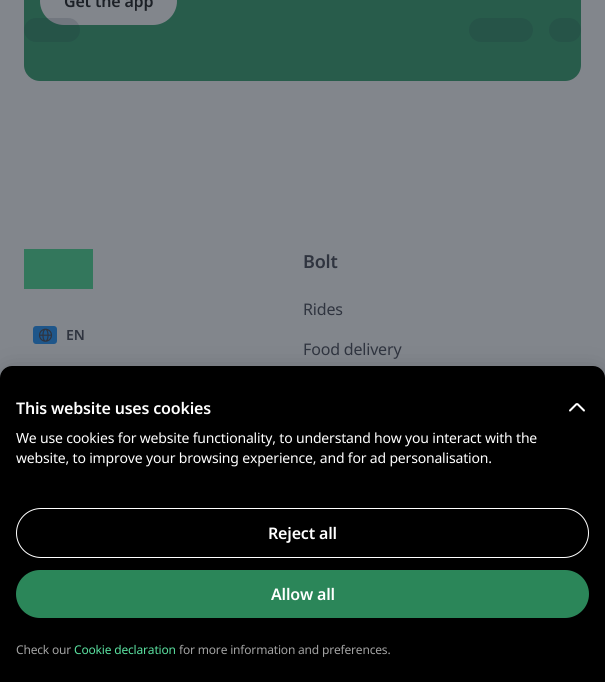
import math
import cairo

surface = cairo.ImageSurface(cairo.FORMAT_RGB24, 605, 682)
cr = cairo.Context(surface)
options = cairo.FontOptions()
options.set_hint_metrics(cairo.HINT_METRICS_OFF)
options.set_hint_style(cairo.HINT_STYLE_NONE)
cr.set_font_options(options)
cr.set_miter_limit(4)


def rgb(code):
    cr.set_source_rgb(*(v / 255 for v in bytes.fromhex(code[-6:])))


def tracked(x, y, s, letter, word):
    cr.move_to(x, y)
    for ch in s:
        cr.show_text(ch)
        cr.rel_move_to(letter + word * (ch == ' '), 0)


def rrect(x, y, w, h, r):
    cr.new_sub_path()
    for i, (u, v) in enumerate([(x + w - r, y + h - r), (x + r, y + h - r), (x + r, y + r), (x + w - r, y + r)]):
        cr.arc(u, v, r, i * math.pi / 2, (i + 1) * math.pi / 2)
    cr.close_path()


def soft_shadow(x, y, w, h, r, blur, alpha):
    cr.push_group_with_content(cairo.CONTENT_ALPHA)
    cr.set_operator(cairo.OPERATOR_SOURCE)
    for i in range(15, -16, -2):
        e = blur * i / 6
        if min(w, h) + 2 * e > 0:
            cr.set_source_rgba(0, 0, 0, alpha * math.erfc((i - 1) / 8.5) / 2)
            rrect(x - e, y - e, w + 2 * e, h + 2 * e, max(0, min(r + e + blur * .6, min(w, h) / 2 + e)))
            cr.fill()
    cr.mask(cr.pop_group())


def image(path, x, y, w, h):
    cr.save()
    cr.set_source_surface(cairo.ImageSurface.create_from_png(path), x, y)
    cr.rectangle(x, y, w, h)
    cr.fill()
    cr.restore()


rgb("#82868c")
cr.paint()
rgb("#285c4b")
rrect(24, -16, 557, 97, 16)
cr.fill()
rgb("#82868c")
rrect(40, -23, 137, 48, 24)
cr.fill()
cr.set_source_rgba(0.122, 0.169, 0.235, 0.16)
rrect(24, 18, 56, 24, 12)
cr.fill()
rgb("#265448")
rrect(469, 18, 64, 24, 12)
cr.fill()
rrect(549, 18, 32, 24, 12)
cr.fill()
rgb("#33775c")
cr.rectangle(24, 249, 69, 40)
cr.fill()
rgb("#1e568a")
rrect(33, 326, 24, 18, 3)
cr.fill()
image("img/1.png", 38, 328, 15, 14)
rgb("#000000")
soft_shadow(0, 372, 605, 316, 12, 12, 0.24)
rgb("#000000")
cr.new_path()
cr.move_to(12, 366)
cr.line_to(593, 366)
cr.curve_to(599.5, 366, 605, 371.5, 605, 378)
cr.line_to(605, 682)
cr.line_to(0, 682)
cr.line_to(0, 378)
cr.curve_to(0, 371.5, 5.5, 366, 12, 366)
cr.close_path()
cr.fill()
image("img/2.png", 569, 403, 16, 9)
rrect(16.5, 508.5, 572, 49, 24.5)
rgb("#ffffff")
cr.set_line_width(1)
cr.stroke()
rgb("#2b8659")
rrect(16, 570, 573, 48, 24)
cr.fill()
cr.select_font_face("Noto Sans SemiBold")
cr.set_font_size(16)
rgb("#1c2026")
tracked(64, 7, "Get the app", -0.18, 0)
cr.set_font_size(14)
rgb("#2f343f")
tracked(66, 340, "EN", -0.18, 0)
cr.set_font_size(18)
tracked(303, 268, "Bolt", -0.18, 0)
cr.select_font_face("Noto Sans")
cr.set_font_size(16)
tracked(303, 315, "Rides", -0.18, 0)
tracked(303, 355, "Food delivery", -0.18, 0)
cr.select_font_face("Noto Sans SemiBold")
rgb("#ffffff")
tracked(16, 414, "This website uses cookies", -0.18, 0)
cr.select_font_face("Noto Sans")
cr.set_font_size(14)
tracked(16, 443, "We use cookies for website functionality, to understand how you interact with the", -0.18, 0)
tracked(16, 463, "website, to improve your browsing experience, and for ad personalisation.", -0.18, 0)
cr.select_font_face("Noto Sans SemiBold")
cr.set_font_size(16)
tracked(268, 539, "Reject all", -0.18, 0)
tracked(271, 600, "Allow all", -0.18, 0)
cr.select_font_face("Noto Sans")
cr.set_font_size(12)
rgb("#a3a3a3")
tracked(16, 654, "Check our", -0.18, 0)
rgb("#5ae1a0")
tracked(74, 654, "Cookie declaration", -0.18, 0)
rgb("#a3a3a3")
tracked(179, 654, "for more information and preferences.", -0.18, 0)
surface.write_to_png("page.png")
